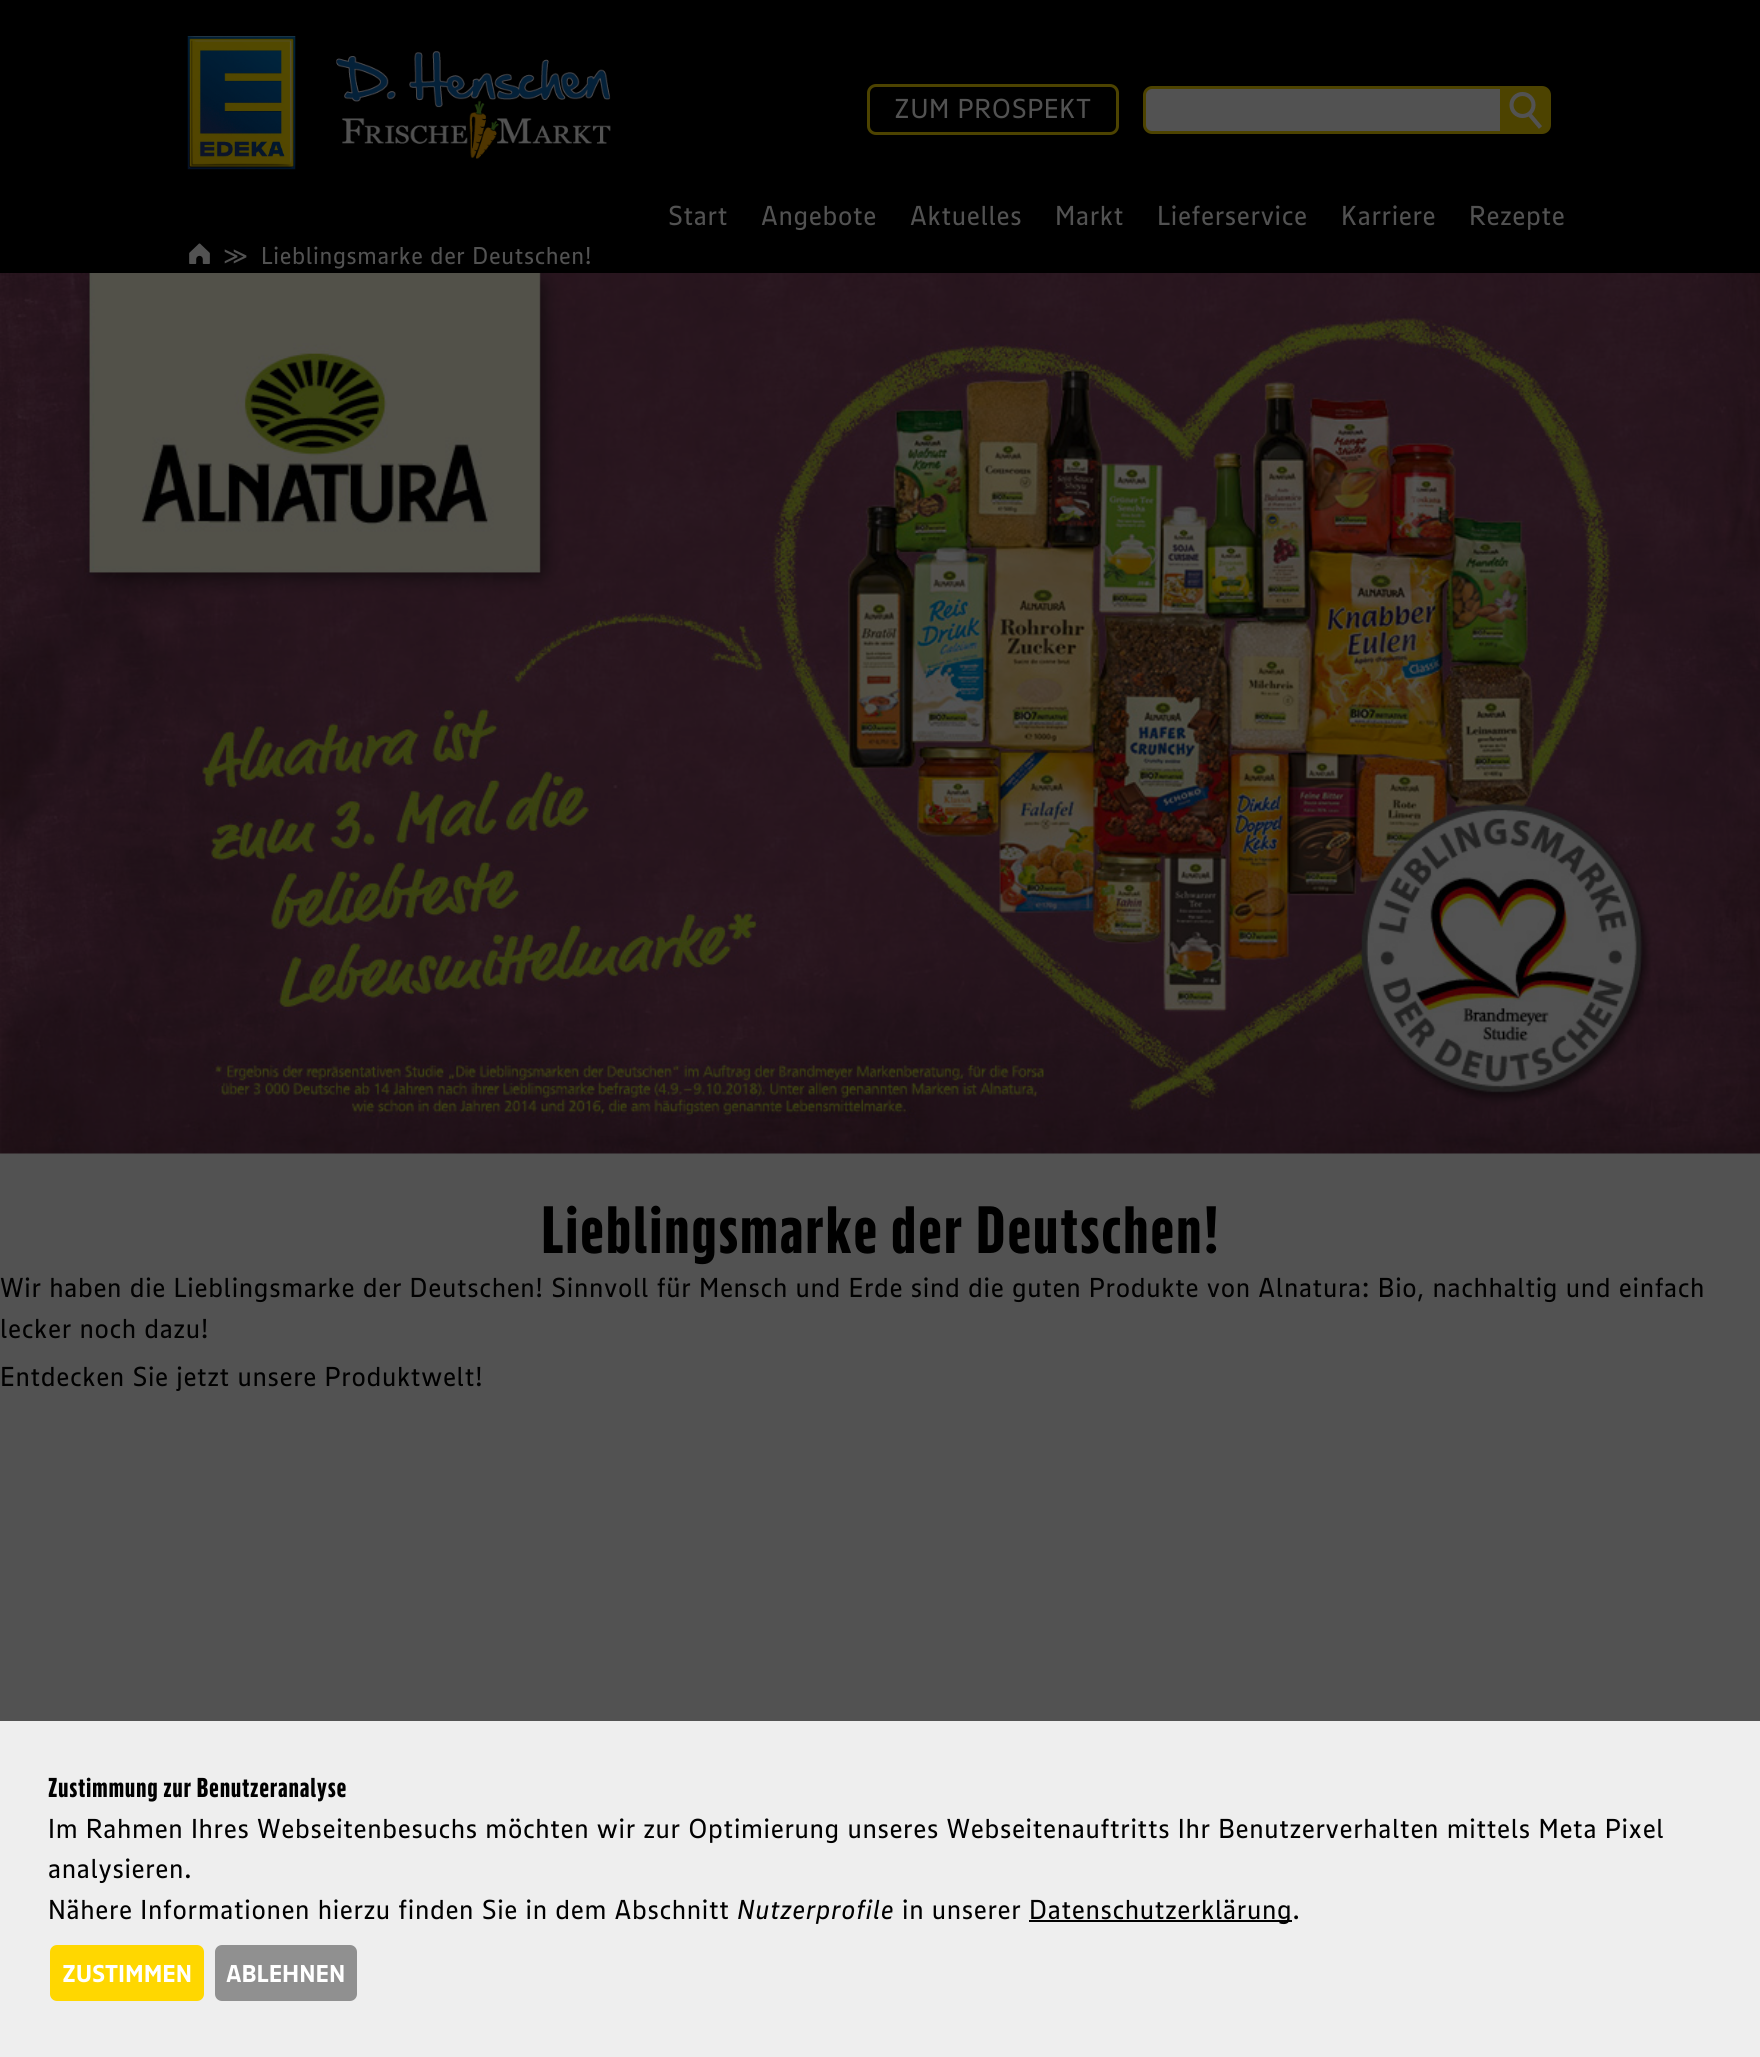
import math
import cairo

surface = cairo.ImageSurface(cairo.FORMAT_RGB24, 1760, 2057)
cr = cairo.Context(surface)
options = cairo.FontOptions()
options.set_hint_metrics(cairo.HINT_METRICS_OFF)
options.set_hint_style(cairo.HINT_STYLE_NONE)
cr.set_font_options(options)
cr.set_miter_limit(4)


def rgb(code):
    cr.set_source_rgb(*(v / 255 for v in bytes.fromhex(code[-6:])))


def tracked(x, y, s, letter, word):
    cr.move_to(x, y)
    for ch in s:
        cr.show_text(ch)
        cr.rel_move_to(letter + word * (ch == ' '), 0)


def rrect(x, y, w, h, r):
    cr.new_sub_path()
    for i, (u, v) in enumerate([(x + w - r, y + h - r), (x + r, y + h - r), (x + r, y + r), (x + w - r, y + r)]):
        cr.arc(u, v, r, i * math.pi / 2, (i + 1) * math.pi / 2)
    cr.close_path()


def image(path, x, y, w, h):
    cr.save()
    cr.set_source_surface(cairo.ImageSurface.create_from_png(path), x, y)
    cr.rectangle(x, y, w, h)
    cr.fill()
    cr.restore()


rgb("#525252")
cr.paint()
rgb("#000000")
cr.rectangle(0, 0, 1760, 273)
cr.fill()
image("img/1.png", 187, 36, 109, 134)
image("img/2.png", 336, 51, 275, 108)
rrect(868.5, 85.5, 249, 48, 7.5)
rgb("#4d4300")
cr.set_line_width(3)
cr.stroke()
rgb("#525252")
cr.new_path()
cr.move_to(1152, 87.5)
cr.line_to(1501.5, 87.5)
cr.line_to(1501.5, 132.5)
cr.line_to(1152, 132.5)
cr.curve_to(1148, 132.5, 1144.5, 129, 1144.5, 125)
cr.line_to(1144.5, 95)
cr.curve_to(1144.5, 91, 1148, 87.5, 1152, 87.5)
cr.close_path()
cr.fill_preserve()
rgb("#4d4300")
cr.stroke()
cr.new_path()
cr.move_to(1503, 86)
cr.line_to(1542, 86)
cr.curve_to(1547, 86, 1551, 90, 1551, 95)
cr.line_to(1551, 125)
cr.curve_to(1551, 130, 1547, 134, 1542, 134)
cr.line_to(1503, 134)
cr.close_path()
cr.fill()
cr.arc(1522.5, 105, 11, 0, 2 * math.pi)
rgb("#525252")
cr.set_line_width(4.1)
cr.stroke()
cr.new_path()
cr.move_to(1530, 115)
cr.line_to(1540.5, 127.5)
cr.stroke()
image("img/3.png", 189, 243, 21, 21)
image("img/4.png", 0, 273, 1760, 881)
rgb("#eeeeee")
cr.rectangle(0, 1721, 1760, 336)
cr.fill()
rgb("#020202")
cr.rectangle(1029, 1920, 263, 2)
cr.fill()
rgb("#ffd700")
rrect(49, 1944, 156, 58, 8)
cr.fill_preserve()
rgb("#eeeeee")
cr.set_line_width(2)
cr.stroke()
rgb("#909090")
rrect(214, 1944, 144, 58, 8)
cr.fill_preserve()
rgb("#eeeeee")
cr.stroke()
cr.select_font_face("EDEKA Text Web")
cr.set_font_size(27)
rgb("#525252")
for x, y, s in [
    (894, 118, "ZUM PROSPEKT"),
    (668, 225, "Start"),
    (761, 225, "Angebote"),
    (910, 225, "Aktuelles"),
    (1055, 225, "Markt"),
    (1157, 225, "Lieferservice"),
    (1341, 225, "Karriere"),
    (1469, 225, "Rezepte"),
]:
    tracked(x, y, s, 0.68, 0)
cr.select_font_face("DejaVu Sans")
cr.set_font_size(24)
tracked(223, 264, "≫", 0.68, 0)
cr.select_font_face("EDEKA Text Web")
tracked(261, 264, "Lieblingsmarke der Deutschen!", 0.68, 0)
cr.select_font_face("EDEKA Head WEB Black")
cr.set_font_size(66)
rgb("#000000")
tracked(541, 1253, "Lieblingsmarke der Deutschen!", 1.65, 0)
cr.select_font_face("EDEKA Text Web")
cr.set_font_size(27)
for x, y, s in [
    (0, 1297, "Wir haben die Lieblingsmarke der Deutschen! Sinnvoll für Mensch und Erde sind die guten Produkte von Alnatura: Bio, nachhaltig und einfach"),
    (0, 1338, "lecker noch dazu!"),
    (0, 1386, "Entdecken Sie jetzt unsere Produktwelt!"),
]:
    tracked(x, y, s, 0.68, 0)
cr.select_font_face("EDEKA Head WEB Black")
tracked(48, 1797, "Zustimmung zur Benutzeranalyse", 0.68, 0)
cr.select_font_face("EDEKA Text Web")
for x, y, s in [
    (48, 1838, "Im Rahmen Ihres Webseitenbesuchs möchten wir zur Optimierung unseres Webseitenauftritts Ihr Benutzerverhalten mittels Meta Pixel"),
    (48, 1878, "analysieren."),
    (48, 1919, "Nähere Informationen hierzu finden Sie in dem Abschnitt"),
]:
    tracked(x, y, s, 0.68, 0)
cr.select_font_face("EDEKA Text Web", cairo.FONT_SLANT_ITALIC)
tracked(737, 1919, "Nutzerprofile", 0.68, 0)
cr.select_font_face("EDEKA Text Web")
tracked(902, 1919, "in unserer", 0.68, 0)
tracked(1029, 1919, "Datenschutzerklärung.", 0.68, 0)
cr.select_font_face("EDEKA Text Web", cairo.FONT_SLANT_NORMAL, cairo.FONT_WEIGHT_BOLD)
cr.set_font_size(24)
rgb("#ffffff")
cr.move_to(62, 1982)
cr.show_text("ZUSTIMMEN")
cr.move_to(226, 1982)
cr.show_text("ABLEHNEN")
surface.write_to_png("page.png")
